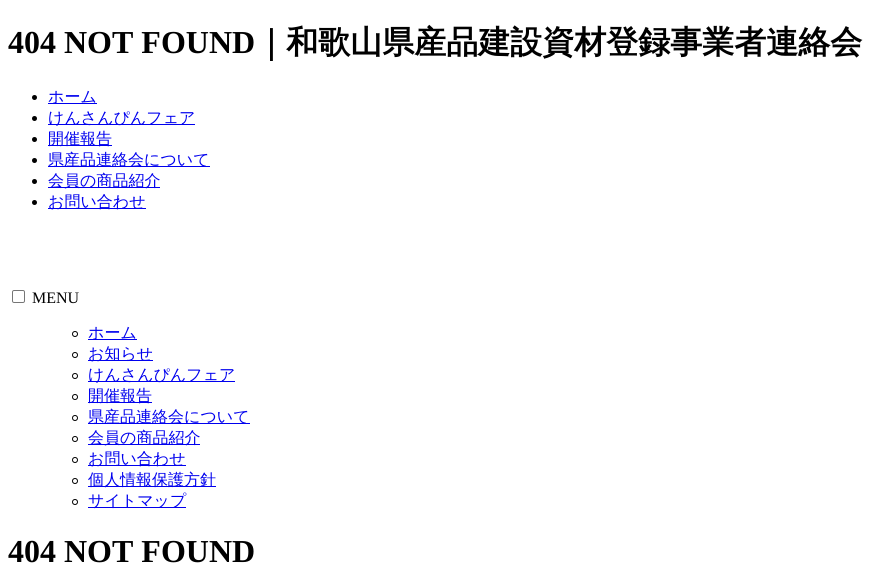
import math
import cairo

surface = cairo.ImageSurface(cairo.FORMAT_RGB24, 893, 586)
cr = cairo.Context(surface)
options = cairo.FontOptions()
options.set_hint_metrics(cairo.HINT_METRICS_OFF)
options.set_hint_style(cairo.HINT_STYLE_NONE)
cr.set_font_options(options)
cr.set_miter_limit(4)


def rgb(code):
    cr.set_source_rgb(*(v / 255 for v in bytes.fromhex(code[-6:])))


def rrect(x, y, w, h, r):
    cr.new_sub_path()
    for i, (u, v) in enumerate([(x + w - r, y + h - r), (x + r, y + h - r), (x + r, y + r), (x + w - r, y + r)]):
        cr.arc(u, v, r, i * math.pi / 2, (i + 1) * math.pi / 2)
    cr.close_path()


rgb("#ffffff")
cr.paint()
rgb("#000000")
cr.arc(34.5, 97.5, 2.5, 0, 2 * math.pi)
cr.fill()
rgb("#0000ee")
cr.rectangle(48, 103, 49, 1)
cr.fill()
rgb("#000000")
cr.arc(34.5, 118.5, 2.5, 0, 2 * math.pi)
cr.fill()
rgb("#0000ee")
cr.rectangle(48, 124, 147, 1)
cr.fill()
rgb("#000000")
cr.arc(34.5, 139.5, 2.5, 0, 2 * math.pi)
cr.fill()
rgb("#0000ee")
cr.rectangle(48, 145, 64, 1)
cr.fill()
rgb("#000000")
cr.arc(34.5, 160.5, 2.5, 0, 2 * math.pi)
cr.fill()
rgb("#0000ee")
cr.rectangle(48, 166, 162, 1)
cr.fill()
rgb("#000000")
cr.arc(34.5, 181.5, 2.5, 0, 2 * math.pi)
cr.fill()
rgb("#0000ee")
cr.rectangle(48, 187, 112, 1)
cr.fill()
rgb("#000000")
cr.arc(34.5, 202.5, 2.5, 0, 2 * math.pi)
cr.fill()
rgb("#0000ee")
cr.rectangle(48, 208, 98, 1)
cr.fill()
rrect(12.5, 290.5, 12, 12, 1.5)
rgb("#767676")
cr.set_line_width(1)
cr.stroke()
cr.arc(75, 334, 2.5, 0, 2 * math.pi)
rgb("#000000")
cr.stroke()
rgb("#0000ee")
cr.rectangle(88, 339, 49, 1)
cr.fill()
cr.arc(75, 355, 2.5, 0, 2 * math.pi)
rgb("#000000")
cr.stroke()
rgb("#0000ee")
cr.rectangle(88, 360, 65, 1)
cr.fill()
cr.arc(75, 376, 2.5, 0, 2 * math.pi)
rgb("#000000")
cr.stroke()
rgb("#0000ee")
cr.rectangle(88, 381, 147, 1)
cr.fill()
cr.arc(75, 397, 2.5, 0, 2 * math.pi)
rgb("#000000")
cr.stroke()
rgb("#0000ee")
cr.rectangle(88, 402, 64, 1)
cr.fill()
cr.arc(75, 418, 2.5, 0, 2 * math.pi)
rgb("#000000")
cr.stroke()
rgb("#0000ee")
cr.rectangle(88, 423, 162, 1)
cr.fill()
cr.arc(75, 439, 2.5, 0, 2 * math.pi)
rgb("#000000")
cr.stroke()
rgb("#0000ee")
cr.rectangle(88, 444, 112, 1)
cr.fill()
cr.arc(75, 460, 2.5, 0, 2 * math.pi)
rgb("#000000")
cr.stroke()
rgb("#0000ee")
cr.rectangle(88, 465, 98, 1)
cr.fill()
cr.arc(75, 481, 2.5, 0, 2 * math.pi)
rgb("#000000")
cr.stroke()
rgb("#0000ee")
cr.rectangle(88, 486, 128, 1)
cr.fill()
cr.arc(75, 502, 2.5, 0, 2 * math.pi)
rgb("#000000")
cr.stroke()
rgb("#0000ee")
cr.rectangle(88, 507, 98, 1)
cr.fill()
cr.select_font_face("Liberation Serif", cairo.FONT_SLANT_NORMAL, cairo.FONT_WEIGHT_BOLD)
cr.set_font_size(32)
rgb("#000000")
cr.move_to(8, 53)
cr.show_text("404 NOT FOUND")
cr.select_font_face("WenQuanYi Zen Hei", cairo.FONT_SLANT_NORMAL, cairo.FONT_WEIGHT_BOLD)
cr.move_to(255, 53)
cr.show_text("｜和歌山県産品建設資材登録事業者連絡会")
cr.select_font_face("WenQuanYi Zen Hei Medium")
cr.set_font_size(16)
rgb("#0000ee")
for x, y, s in [
    (48, 102, "ホーム"),
    (48, 123, "けんさんぴんフェア"),
    (48, 144, "開催報告"),
    (48, 165, "県産品連絡会について"),
    (48, 186, "会員の商品紹介"),
    (48, 207, "お問い合わせ"),
]:
    cr.move_to(x, y)
    cr.show_text(s)
cr.select_font_face("Liberation Serif")
rgb("#000000")
cr.move_to(32, 303)
cr.show_text("MENU")
cr.select_font_face("WenQuanYi Zen Hei Medium")
rgb("#0000ee")
for x, y, s in [
    (88, 338, "ホーム"),
    (88, 359, "お知らせ"),
    (88, 380, "けんさんぴんフェア"),
    (88, 401, "開催報告"),
    (88, 422, "県産品連絡会について"),
    (88, 443, "会員の商品紹介"),
    (88, 464, "お問い合わせ"),
    (88, 485, "個人情報保護方針"),
    (88, 506, "サイトマップ"),
]:
    cr.move_to(x, y)
    cr.show_text(s)
cr.select_font_face("Liberation Serif", cairo.FONT_SLANT_NORMAL, cairo.FONT_WEIGHT_BOLD)
cr.set_font_size(32)
rgb("#000000")
cr.move_to(8, 562)
cr.show_text("404 NOT FOUND")
surface.write_to_png("page.png")
